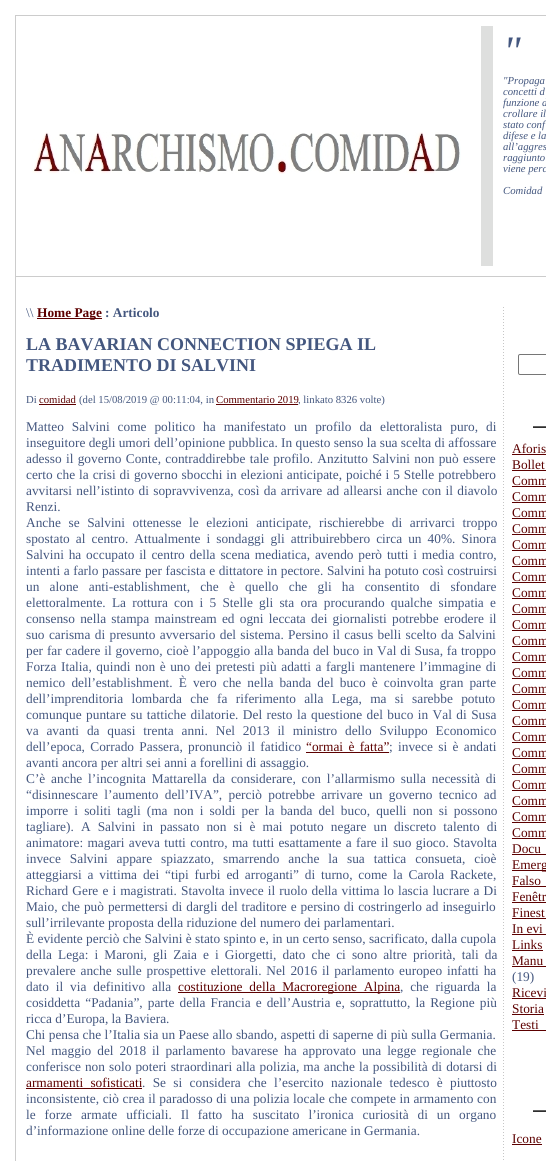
import math
import cairo

surface = cairo.ImageSurface(cairo.FORMAT_RGB24, 546, 1161)
cr = cairo.Context(surface)
options = cairo.FontOptions()
options.set_hint_metrics(cairo.HINT_METRICS_OFF)
options.set_hint_style(cairo.HINT_STYLE_NONE)
cr.set_font_options(options)
cr.set_miter_limit(4)


def rgb(code):
    cr.set_source_rgb(*(v / 255 for v in bytes.fromhex(code[-6:])))


def tracked(x, y, s, letter, word):
    cr.move_to(x, y)
    for ch in s:
        cr.show_text(ch)
        cr.rel_move_to(letter + word * (ch == ' '), 0)


def rrect(x, y, w, h, r):
    cr.new_sub_path()
    for i, (u, v) in enumerate([(x + w - r, y + h - r), (x + r, y + h - r), (x + r, y + r), (x + w - r, y + r)]):
        cr.arc(u, v, r, i * math.pi / 2, (i + 1) * math.pi / 2)
    cr.close_path()


def image(path, x, y, w, h):
    cr.save()
    cr.set_source_surface(cairo.ImageSurface.create_from_png(path), x, y)
    cr.rectangle(x, y, w, h)
    cr.fill()
    cr.restore()


rgb("#ffffff")
cr.paint()
rgb("#cccccc")
cr.rectangle(15, 15, 531, 1)
cr.fill()
cr.rectangle(15, 15, 1, 1146)
cr.fill()
image("img/1.png", 32, 132, 429, 42)
for x, y, w, h, color in [
    (481, 26, 12, 240, "#dedfde"),
    (15, 276, 531, 1, "#cccccc"),
    (37, 318, 65, 1, "#5c0000"),
    (39, 404, 37, 1, "#5c0000"),
    (216, 404, 82, 1, "#5c0000"),
    (306, 752, 83, 1, "#5c0000"),
    (178, 992, 222, 1, "#5c0000"),
    (26, 1088, 116, 1, "#5c0000"),
]:
    rgb(color)
    cr.rectangle(x, y, w, h)
    cr.fill()
image("img/2.png", 503, 307, 1, 853)
rrect(518.5, 354.5, 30, 20, 1.5)
rgb("#767676")
cr.set_line_width(1)
cr.stroke()
image("img/3.png", 533, 426, 13, 2)
for x, y, w, h, color in [
    (512, 454, 34, 1, "#5c0000"),
    (512, 470, 34, 1, "#5c0000"),
    (512, 486, 34, 1, "#5c0000"),
    (512, 502, 34, 1, "#5c0000"),
    (512, 518, 34, 1, "#5c0000"),
    (512, 534, 34, 1, "#5c0000"),
    (512, 550, 34, 1, "#5c0000"),
    (512, 566, 34, 1, "#5c0000"),
    (512, 582, 34, 1, "#5c0000"),
    (512, 598, 34, 1, "#5c0000"),
    (512, 614, 34, 1, "#5c0000"),
    (512, 630, 34, 1, "#5c0000"),
    (512, 646, 34, 1, "#5c0000"),
    (512, 662, 34, 1, "#5c0000"),
    (512, 678, 34, 1, "#5c0000"),
    (512, 694, 34, 1, "#5c0000"),
    (512, 710, 34, 1, "#5c0000"),
    (512, 726, 34, 1, "#5c0000"),
    (512, 742, 34, 1, "#5c0000"),
    (512, 758, 34, 1, "#5c0000"),
    (512, 774, 34, 1, "#5c0000"),
    (512, 790, 34, 1, "#5c0000"),
    (512, 806, 34, 1, "#5c0000"),
    (512, 822, 34, 1, "#5c0000"),
    (512, 838, 34, 1, "#5c0000"),
    (512, 854, 34, 1, "#5c0000"),
    (512, 870, 34, 1, "#5c0000"),
    (512, 886, 34, 1, "#5c0000"),
    (512, 902, 34, 1, "#5c0000"),
    (512, 918, 34, 1, "#5c0000"),
    (512, 934, 34, 1, "#5c0000"),
    (512, 950, 31, 1, "#5c0000"),
    (512, 966, 34, 1, "#5c0000"),
    (512, 998, 34, 1, "#5c0000"),
    (512, 1014, 32, 1, "#5c0000"),
    (512, 1030, 34, 1, "#5c0000"),
]:
    rgb(color)
    cr.rectangle(x, y, w, h)
    cr.fill()
image("img/3.png", 533, 1110, 13, 2)
cr.rectangle(512, 1144, 30, 1)
cr.fill()
cr.select_font_face("Liberation Serif", cairo.FONT_SLANT_ITALIC)
cr.set_font_size(42)
rgb("#44577f")
cr.move_to(503, 65)
cr.show_text("\"")
cr.set_font_size(10.7)
for x, y, s in [
    (503, 84, "\"Propaga"),
    (503, 95, "concetti d"),
    (503, 106, "funzione d"),
    (503, 117, "crollare il"),
    (503, 128, "stato conf"),
    (503, 139, "difese e la"),
    (503, 150, "all’aggres"),
    (503, 161, "raggiunto"),
    (503, 172, "viene perc"),
    (503, 194, "Comidad"),
]:
    cr.move_to(x, y)
    cr.show_text(s)
cr.select_font_face("Liberation Serif")
cr.set_font_size(13.35)
cr.move_to(26, 317)
cr.show_text("\\\\")
cr.select_font_face("Liberation Serif", cairo.FONT_SLANT_NORMAL, cairo.FONT_WEIGHT_BOLD)
rgb("#5c0000")
cr.move_to(37, 317)
cr.show_text("Home Page")
rgb("#44577f")
cr.move_to(105, 317)
cr.show_text(": Articolo")
cr.set_font_size(18)
cr.move_to(26, 350)
cr.show_text("LA BAVARIAN CONNECTION SPIEGA IL")
cr.move_to(26, 371)
cr.show_text("TRADIMENTO DI SALVINI")
cr.select_font_face("Liberation Serif")
cr.set_font_size(10.7)
cr.move_to(26, 403)
cr.show_text("Di")
rgb("#5c0000")
cr.move_to(39, 403)
cr.show_text("comidad")
rgb("#44577f")
cr.move_to(79, 403)
cr.show_text("(del 15/08/2019 @ 00:11:04, in")
rgb("#5c0000")
cr.move_to(216, 403)
cr.show_text("Commentario 2019")
rgb("#44577f")
cr.move_to(298, 403)
cr.show_text(", linkato 8326 volte)")
cr.set_font_size(13.35)
tracked(26, 431, "Matteo Salvini come politico ha manifestato un profilo da elettoralista puro, di", 0, 4.6)
cr.move_to(26, 447)
cr.show_text("inseguitore degli umori dell’opinione pubblica. In questo senso la sua scelta di affossare")
tracked(26, 463, "adesso il governo Conte, contraddirebbe tale profilo. Anzitutto Salvini non può essere", 0, 1)
tracked(26, 479, "certo che la crisi di governo sbocchi in elezioni anticipate, poiché i 5 Stelle potrebbero", 0, 0.6)
tracked(26, 495, "avvitarsi nell’istinto di sopravvivenza, così da arrivare ad allearsi anche con il diavolo", 0, 1)
cr.move_to(26, 511)
cr.show_text("Renzi.")
tracked(26, 527, "Anche se Salvini ottenesse le elezioni anticipate, rischierebbe di arrivarci troppo", 0, 4.25)
tracked(26, 543, "spostato al centro. Attualmente i sondaggi gli attribuirebbero circa un 40%. Sinora", 0, 2.75)
tracked(26, 559, "Salvini ha occupato il centro della scena mediatica, avendo però tutti i media contro,", 0, 1.5)
tracked(26, 575, "intenti a farlo passare per fascista e dittatore in pectore. Salvini ha potuto così costruirsi", 0, 0.25)
tracked(26, 591, "un alone anti-establishment, che è quello che gli ha consentito di sfondare", 0, 6.9)
tracked(26, 607, "elettoralmente. La rottura con i 5 Stelle gli sta ora procurando qualche simpatia e", 0, 2.9)
tracked(26, 623, "consenso nella stampa mainstream ed ogni leccata dei giornalisti potrebbe erodere il", 0, 1.9)
tracked(26, 639, "suo carisma di presunto avversario del sistema. Persino il casus belli scelto da Salvini", 0, 1)
tracked(26, 655, "per far cadere il governo, cioè l’appoggio alla banda del buco in Val di Susa, fa troppo", 0, 0.5)
tracked(26, 671, "Forza Italia, quindi non è uno dei pretesti più adatti a fargli mantenere l’immagine di", 0, 1.25)
tracked(26, 687, "nemico dell’establishment. È vero che nella banda del buco è coinvolta gran parte", 0, 2.75)
tracked(26, 703, "dell’imprenditoria lombarda che fa riferimento alla Lega, ma si sarebbe potuto", 0, 5)
tracked(26, 719, "comunque puntare su tattiche dilatorie. Del resto la questione del buco in Val di Susa", 0, 1.1)
tracked(26, 735, "va avanti da quasi trenta anni. Nel 2013 il ministro dello Sviluppo Economico", 0, 4.5)
tracked(26, 751, "dell’epoca, Corrado Passera, pronunciò il fatidico", 0, 2)
rgb("#5c0000")
tracked(306, 751, "“ormai è fatta”", 0, 2)
rgb("#44577f")
tracked(389, 751, "; invece si è andati", 0, 2)
cr.move_to(26, 767)
cr.show_text("avanti ancora per altri sei anni a forellini di assaggio.")
tracked(26, 783, "C’è anche l’incognita Mattarella da considerare, con l’allarmismo sulla necessità di", 0, 2.5)
tracked(26, 799, "“disinnescare l’aumento dell’IVA”, perciò potrebbe arrivare un governo tecnico ad", 0, 3)
tracked(26, 815, "imporre i soliti tagli (ma non i soldi per la banda del buco, quelli non si possono", 0, 2.75)
tracked(26, 831, "tagliare). A Salvini in passato non si è mai potuto negare un discreto talento di", 0, 3.75)
tracked(26, 847, "animatore: magari aveva tutti contro, ma tutti esattamente a fare il suo gioco. Stavolta", 0, 1)
tracked(26, 863, "invece Salvini appare spiazzato, smarrendo anche la sua tattica consueta, cioè", 0, 5.6)
tracked(26, 879, "atteggiarsi a vittima dei “tipi furbi ed arroganti” di turno, come la Carola Rackete,", 0, 2.5)
tracked(26, 895, "Richard Gere e i magistrati. Stavolta invece il ruolo della vittima lo lascia lucrare a Di", 0, 0.75)
tracked(26, 911, "Maio, che può permettersi di dargli del traditore e persino di costringerlo ad inseguirlo", 0, 0.6)
cr.move_to(26, 927)
cr.show_text("sull’irrilevante proposta della riduzione del numero dei parlamentari.")
cr.move_to(26, 943)
cr.show_text("È evidente perciò che Salvini è stato spinto e, in un certo senso, sacrificato, dalla cupola")
tracked(26, 959, "della Lega: i Maroni, gli Zaia e i Giorgetti, dato che ci sono altre priorità, tali da", 0, 2.75)
tracked(26, 975, "prevalere anche sulle prospettive elettorali. Nel 2016 il parlamento europeo infatti ha", 0, 1.5)
tracked(26, 991, "dato il via definitivo alla", 0, 3.5)
rgb("#5c0000")
tracked(178, 991, "costituzione della Macroregione Alpina", 0, 3.5)
rgb("#44577f")
tracked(400, 991, ", che riguarda la", 0, 3.5)
tracked(26, 1007, "cosiddetta “Padania”, parte della Francia e dell’Austria e, soprattutto, la Regione più", 0, 1.75)
cr.move_to(26, 1023)
cr.show_text("ricca d’Europa, la Baviera.")
tracked(26, 1039, "Chi pensa che l’Italia sia un Paese allo sbando, aspetti di saperne di più sulla Germania.", 0, 0.1)
tracked(26, 1055, "Nel maggio del 2018 il parlamento bavarese ha approvato una legge regionale che", 0, 2.6)
tracked(26, 1071, "conferisce non solo poteri straordinari alla polizia, ma anche la possibilità di dotarsi di", 0, 0.75)
rgb("#5c0000")
tracked(26, 1087, "armamenti sofisticati", 0, 4)
rgb("#44577f")
tracked(142, 1087, ". Se si considera che l’esercito nazionale tedesco è piuttosto", 0, 4)
tracked(26, 1103, "inconsistente, ciò crea il paradosso di una polizia locale che compete in armamento con", 0, 0.25)
tracked(26, 1119, "le forze armate ufficiali. Il fatto ha suscitato l’ironica curiosità di un organo", 0, 5.6)
cr.move_to(26, 1135)
cr.show_text("d’informazione online delle forze di occupazione americane in Germania.")
rgb("#5c0000")
for x, y, s in [
    (512, 453, "Aforis"),
    (512, 469, "Bollet"),
    (512, 485, "Comm"),
    (512, 501, "Comm"),
    (512, 517, "Comm"),
    (512, 533, "Comm"),
    (512, 549, "Comm"),
    (512, 565, "Comm"),
    (512, 581, "Comm"),
    (512, 597, "Comm"),
    (512, 613, "Comm"),
    (512, 629, "Comm"),
    (512, 645, "Comm"),
    (512, 661, "Comm"),
    (512, 677, "Comm"),
    (512, 693, "Comm"),
    (512, 709, "Comm"),
    (512, 725, "Comm"),
    (512, 741, "Comm"),
    (512, 757, "Comm"),
    (512, 773, "Comm"),
    (512, 789, "Comm"),
    (512, 805, "Comm"),
    (512, 821, "Comm"),
    (512, 837, "Comm"),
    (512, 853, "Docu"),
    (512, 869, "Emerg"),
    (512, 885, "Falso"),
    (512, 901, "Fenêtr"),
    (512, 917, "Finest"),
    (512, 933, "In evi"),
    (512, 949, "Links"),
    (512, 965, "Manu"),
]:
    cr.move_to(x, y)
    cr.show_text(s)
rgb("#44577f")
cr.move_to(512, 981)
cr.show_text("(19)")
rgb("#5c0000")
for x, y, s in [
    (512, 997, "Ricevi"),
    (512, 1013, "Storia"),
    (512, 1029, "Testi"),
    (512, 1143, "Icone"),
]:
    cr.move_to(x, y)
    cr.show_text(s)
surface.write_to_png("page.png")
